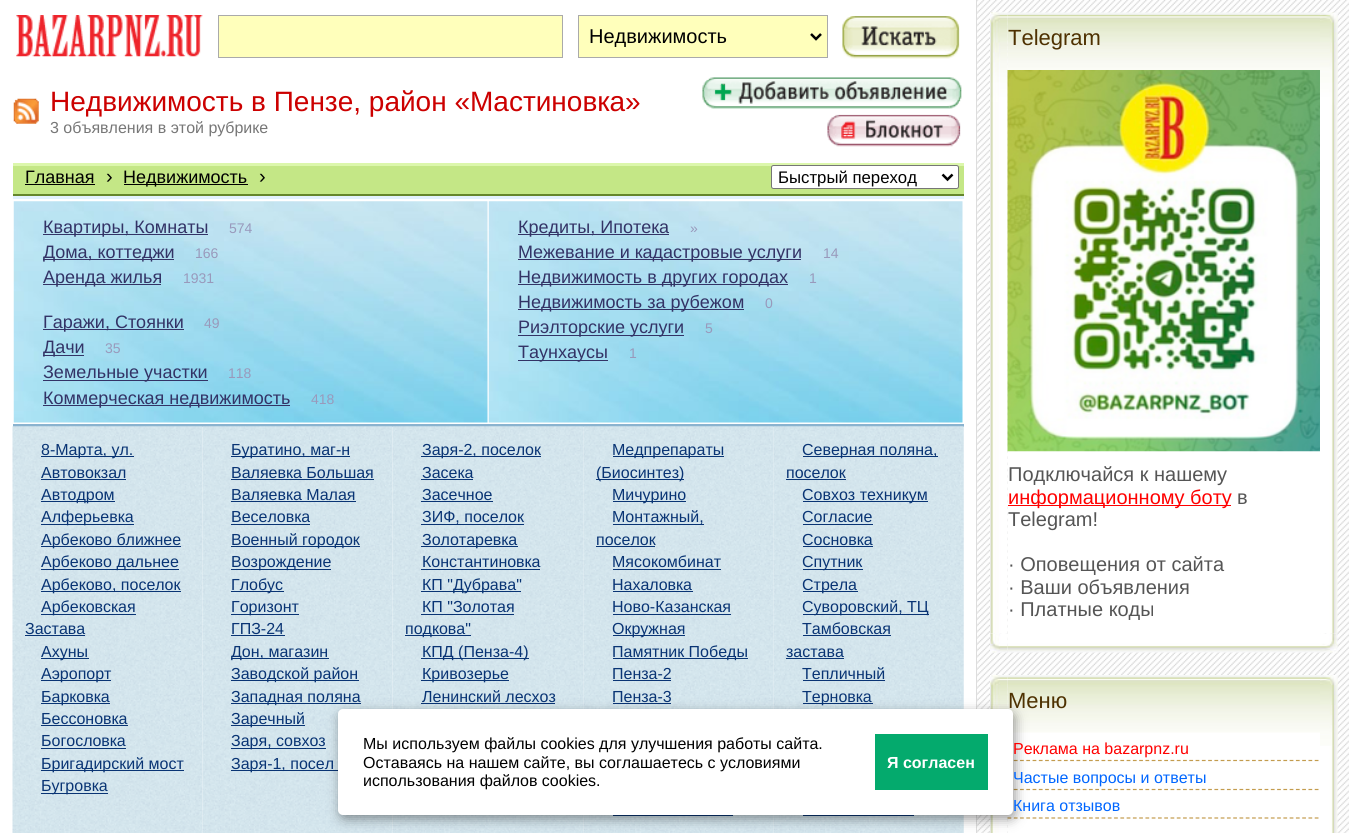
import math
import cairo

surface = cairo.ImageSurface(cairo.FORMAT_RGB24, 1349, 833)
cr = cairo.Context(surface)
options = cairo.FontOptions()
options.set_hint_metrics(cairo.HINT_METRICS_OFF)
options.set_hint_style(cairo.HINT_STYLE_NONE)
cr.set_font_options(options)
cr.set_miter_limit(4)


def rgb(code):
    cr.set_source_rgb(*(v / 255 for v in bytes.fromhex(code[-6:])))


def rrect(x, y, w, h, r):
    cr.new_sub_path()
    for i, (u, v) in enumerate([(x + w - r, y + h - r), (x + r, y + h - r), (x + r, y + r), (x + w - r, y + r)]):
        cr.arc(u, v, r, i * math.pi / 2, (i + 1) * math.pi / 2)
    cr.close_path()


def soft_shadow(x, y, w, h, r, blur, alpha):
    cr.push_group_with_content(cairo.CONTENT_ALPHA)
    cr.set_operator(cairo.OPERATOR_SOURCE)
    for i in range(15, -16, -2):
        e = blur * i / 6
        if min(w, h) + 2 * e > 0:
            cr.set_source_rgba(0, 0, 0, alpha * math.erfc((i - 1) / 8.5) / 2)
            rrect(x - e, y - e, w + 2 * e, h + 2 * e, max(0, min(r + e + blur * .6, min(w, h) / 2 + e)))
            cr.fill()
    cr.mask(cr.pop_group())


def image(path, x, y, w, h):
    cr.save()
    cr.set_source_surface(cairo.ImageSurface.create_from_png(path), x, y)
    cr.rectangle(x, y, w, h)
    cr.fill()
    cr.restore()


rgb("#ffffff")
cr.paint()
image("img/1.png", 16, 15, 187, 42)
rgb("#ffffbb")
cr.rectangle(218.5, 15.5, 344, 42)
cr.fill_preserve()
rgb("#aaaaaa")
cr.set_line_width(1)
cr.stroke()
rgb("#ffffbb")
cr.rectangle(578.5, 15.5, 249, 42)
cr.fill_preserve()
rgb("#aaaaaa")
cr.stroke()
cr.new_path()
cr.move_to(811, 34)
cr.line_to(816, 39)
cr.line_to(821, 34)
rgb("#000000")
cr.set_line_width(2.5)
cr.stroke()
image("img/2.png", 842, 16, 118, 43)
image("img/3.png", 13, 98, 26, 26)
image("img/4.png", 702, 77, 260, 32)
image("img/5.png", 827, 114, 134, 33)
for x, y, w, h, color in [
    (13, 166, 951, 28, "#c4e786"),
    (13, 163, 951, 3, "#dcf7ac"),
    (13, 194, 951, 2, "#65862b"),
    (25, 184, 70, 1, "#000000"),
    (124, 184, 124, 1, "#000000"),
]:
    rgb(color)
    cr.rectangle(x, y, w, h)
    cr.fill()
rgb("#ffffff")
rrect(771.5, 165.5, 187, 23, 2)
cr.fill_preserve()
rgb("#767676")
cr.set_line_width(1)
cr.stroke()
cr.new_path()
cr.move_to(942.5, 174.5)
cr.line_to(947.5, 179.5)
cr.line_to(952.5, 174.5)
rgb("#000000")
cr.set_line_width(2.5)
cr.stroke()
rgb("#e3f2fd")
cr.rectangle(13, 196, 951, 3)
cr.fill()
rgb("#8ab3cf")
cr.rectangle(13, 424, 951, 3)
cr.fill()
image("img/6.png", 13, 201, 475, 222)
for x, y, w, h, color in [
    (43, 234, 165, 1, "#333366"),
    (43, 259, 131, 1, "#333366"),
    (43, 284, 118, 1, "#333366"),
    (43, 329, 141, 1, "#333366"),
    (43, 355, 41, 1, "#333366"),
    (43, 380, 165, 1, "#333366"),
    (43, 405, 247, 1, "#333366"),
]:
    rgb(color)
    cr.rectangle(x, y, w, h)
    cr.fill()
image("img/7.png", 488, 201, 475, 222)
for x, y, w, h, color in [
    (518, 234, 151, 1, "#333366"),
    (518, 259, 283, 1, "#333366"),
    (518, 284, 270, 1, "#333366"),
    (518, 309, 226, 1, "#333366"),
    (518, 335, 166, 1, "#333366"),
    (518, 360, 90, 1, "#333366"),
]:
    rgb(color)
    cr.rectangle(x, y, w, h)
    cr.fill()
image("img/8.png", 12, 426, 191, 407)
for x, y, w, h, color in [
    (41, 456, 93, 1, "#093474"),
    (41, 479, 85, 1, "#093474"),
    (41, 501, 74, 1, "#093474"),
    (41, 524, 93, 1, "#093474"),
    (41, 546, 140, 1, "#093474"),
    (41, 569, 138, 1, "#093474"),
    (41, 591, 140, 1, "#093474"),
    (41, 614, 95, 1, "#093474"),
    (25, 635, 60, 1, "#093474"),
    (41, 658, 48, 1, "#093474"),
    (41, 680, 70, 1, "#093474"),
    (41, 703, 69, 1, "#093474"),
    (41, 725, 87, 1, "#093474"),
    (41, 748, 85, 1, "#093474"),
    (41, 770, 143, 1, "#093474"),
    (41, 793, 67, 1, "#093474"),
]:
    rgb(color)
    cr.rectangle(x, y, w, h)
    cr.fill()
image("img/9.png", 202, 426, 191, 407)
for x, y, w, h, color in [
    (231, 456, 119, 1, "#093474"),
    (231, 479, 143, 1, "#093474"),
    (231, 501, 125, 1, "#093474"),
    (231, 524, 79, 1, "#093474"),
    (231, 546, 129, 1, "#093474"),
    (231, 569, 100, 1, "#093474"),
    (231, 591, 53, 1, "#093474"),
    (231, 614, 68, 1, "#093474"),
    (231, 635, 54, 1, "#093474"),
    (231, 658, 98, 1, "#093474"),
    (231, 680, 128, 1, "#093474"),
    (231, 703, 130, 1, "#093474"),
    (231, 725, 74, 1, "#093474"),
    (231, 748, 95, 1, "#093474"),
    (231, 770, 107, 1, "#093474"),
]:
    rgb(color)
    cr.rectangle(x, y, w, h)
    cr.fill()
image("img/10.png", 392, 426, 192, 407)
for x, y, w, h, color in [
    (421, 456, 120, 1, "#093474"),
    (421, 479, 52, 1, "#093474"),
    (421, 501, 72, 1, "#093474"),
    (421, 524, 103, 1, "#093474"),
    (421, 546, 97, 1, "#093474"),
    (421, 569, 119, 1, "#093474"),
    (421, 591, 100, 1, "#093474"),
    (421, 614, 93, 1, "#093474"),
    (405, 635, 66, 1, "#093474"),
    (421, 658, 108, 1, "#093474"),
    (421, 680, 88, 1, "#093474"),
    (421, 703, 134, 1, "#093474"),
]:
    rgb(color)
    cr.rectangle(x, y, w, h)
    cr.fill()
image("img/11.png", 583, 426, 191, 407)
for x, y, w, h, color in [
    (613, 456, 111, 1, "#093474"),
    (596, 479, 88, 1, "#093474"),
    (613, 501, 73, 1, "#093474"),
    (613, 524, 91, 1, "#093474"),
    (596, 546, 59, 1, "#093474"),
    (613, 569, 108, 1, "#093474"),
    (613, 591, 80, 1, "#093474"),
    (613, 614, 118, 1, "#093474"),
    (613, 635, 72, 1, "#093474"),
    (613, 658, 135, 1, "#093474"),
    (613, 680, 58, 1, "#093474"),
    (613, 703, 58, 1, "#093474"),
    (613, 815, 120, 1, "#093474"),
]:
    rgb(color)
    cr.rectangle(x, y, w, h)
    cr.fill()
image("img/12.png", 773, 426, 191, 407)
for x, y, w, h, color in [
    (803, 456, 135, 1, "#093474"),
    (786, 479, 60, 1, "#093474"),
    (803, 501, 125, 1, "#093474"),
    (803, 524, 70, 1, "#093474"),
    (803, 546, 70, 1, "#093474"),
    (803, 569, 60, 1, "#093474"),
    (803, 591, 55, 1, "#093474"),
    (803, 614, 126, 1, "#093474"),
    (803, 635, 88, 1, "#093474"),
    (786, 658, 58, 1, "#093474"),
    (803, 680, 82, 1, "#093474"),
    (803, 703, 70, 1, "#093474"),
    (803, 815, 111, 1, "#093474"),
]:
    rgb(color)
    cr.rectangle(x, y, w, h)
    cr.fill()
image("img/13.png", 977, 0, 372, 833)
rgb("#dddddd")
cr.rectangle(976, 0, 1, 833)
cr.fill()
image("img/14.png", 990, 12, 18, 622)
image("img/16.png", 1007, 12, 313, 58)
image("img/15.png", 990, 12, 18, 90)
rgb("#ffffff")
cr.rectangle(1008, 451, 312, 183)
cr.fill()
image("img/17.png", 1007, 70, 313, 382)
rgb("#ff0000")
cr.rectangle(1008, 505, 223, 1)
cr.fill()
image("img/18.png", 1320, 12, 18, 622)
image("img/19.png", 1320, 12, 18, 93)
image("img/20.png", 990, 633, 18, 20)
image("img/21.png", 990, 633, 11, 20)
image("img/22.png", 1007, 634, 313, 19)
image("img/23.png", 1320, 634, 18, 19)
image("img/24.png", 990, 675, 18, 158)
rgb("#ffffff")
cr.rectangle(1008, 732, 312, 101)
cr.fill()
image("img/26.png", 1007, 675, 313, 58)
image("img/25.png", 990, 675, 18, 34)
cr.new_path()
cr.move_to(1007.5, 760.5)
cr.line_to(1325, 760.5)
rgb("#c39c4e")
cr.set_line_width(1.2)
cr.set_dash([3.75, 2.52])
cr.stroke()
cr.new_path()
cr.move_to(1007.5, 789.5)
cr.line_to(1325, 789.5)
cr.stroke()
cr.new_path()
cr.move_to(1007.5, 818)
cr.line_to(1325, 818)
cr.stroke()
image("img/27.png", 1320, 675, 18, 158)
image("img/28.png", 1320, 675, 18, 71)
rgb("#000000")
soft_shadow(340, 713, 675, 106, 5, 6, 0.4)
rgb("#ffffff")
rrect(338, 709, 675, 106, 5)
cr.fill()
rgb("#04aa6d")
cr.rectangle(875, 734, 113, 56)
cr.fill()
cr.select_font_face("Liberation Sans")
cr.set_font_size(20)
rgb("#000000")
cr.move_to(589, 43)
cr.show_text("Недвижимость")
cr.set_font_size(28)
rgb("#cc0000")
cr.move_to(50, 111)
cr.show_text("Недвижимость в Пензе, район «Мастиновка»")
cr.set_font_size(16)
rgb("#777777")
cr.move_to(50, 133)
cr.show_text("3 объявления в этой рубрике")
cr.set_font_size(18)
rgb("#000000")
cr.move_to(25, 183)
cr.show_text("Главная")
cr.set_font_size(20)
cr.move_to(106, 183)
cr.show_text("›")
cr.set_font_size(18)
cr.move_to(123, 183)
cr.show_text("Недвижимость")
cr.set_font_size(20)
cr.move_to(259, 183)
cr.show_text("›")
cr.set_font_size(16.75)
cr.move_to(778, 183)
cr.show_text("Быстрый переход")
cr.set_font_size(18)
rgb("#333366")
cr.move_to(43, 233)
cr.show_text("Квартиры, Комнаты")
cr.set_font_size(14)
rgb("#9999bb")
cr.move_to(229, 233)
cr.show_text("574")
cr.set_font_size(18)
rgb("#333366")
cr.move_to(43, 258)
cr.show_text("Дома, коттеджи")
cr.set_font_size(14)
rgb("#9999bb")
cr.move_to(195, 258)
cr.show_text("166")
cr.set_font_size(18)
rgb("#333366")
cr.move_to(43, 283)
cr.show_text("Аренда жилья")
cr.set_font_size(14)
rgb("#9999bb")
cr.move_to(183, 283)
cr.show_text("1931")
cr.set_font_size(18)
rgb("#333366")
cr.move_to(43, 328)
cr.show_text("Гаражи, Стоянки")
cr.set_font_size(14)
rgb("#9999bb")
cr.move_to(204, 328)
cr.show_text("49")
cr.set_font_size(18)
rgb("#333366")
cr.move_to(43, 353)
cr.show_text("Дачи")
cr.set_font_size(14)
rgb("#9999bb")
cr.move_to(105, 353)
cr.show_text("35")
cr.set_font_size(18)
rgb("#333366")
cr.move_to(43, 378)
cr.show_text("Земельные участки")
cr.set_font_size(14)
rgb("#9999bb")
cr.move_to(228, 378)
cr.show_text("118")
cr.set_font_size(18)
rgb("#333366")
cr.move_to(43, 404)
cr.show_text("Коммерческая недвижимость")
cr.set_font_size(14)
rgb("#9999bb")
cr.move_to(311, 404)
cr.show_text("418")
cr.set_font_size(18)
rgb("#333366")
cr.move_to(518, 233)
cr.show_text("Кредиты, Ипотека")
cr.set_font_size(14)
rgb("#9999bb")
cr.move_to(690, 233)
cr.show_text("»")
cr.set_font_size(18)
rgb("#333366")
cr.move_to(518, 258)
cr.show_text("Межевание и кадастровые услуги")
cr.set_font_size(14)
rgb("#9999bb")
cr.move_to(823, 258)
cr.show_text("14")
cr.set_font_size(18)
rgb("#333366")
cr.move_to(518, 283)
cr.show_text("Недвижимость в других городах")
cr.set_font_size(14)
rgb("#9999bb")
cr.move_to(809, 283)
cr.show_text("1")
cr.set_font_size(18)
rgb("#333366")
cr.move_to(518, 308)
cr.show_text("Недвижимость за рубежом")
cr.set_font_size(14)
rgb("#9999bb")
cr.move_to(765, 308)
cr.show_text("0")
cr.set_font_size(18)
rgb("#333366")
cr.move_to(518, 333)
cr.show_text("Риэлторские услуги")
cr.set_font_size(14)
rgb("#9999bb")
cr.move_to(705, 333)
cr.show_text("5")
cr.set_font_size(18)
rgb("#333366")
cr.move_to(518, 358)
cr.show_text("Таунхаусы")
cr.set_font_size(14)
rgb("#9999bb")
cr.move_to(629, 358)
cr.show_text("1")
cr.set_font_size(16)
rgb("#093474")
for x, y, s in [
    (41, 455, "8-Марта, ул."),
    (41, 478, "Автовокзал"),
    (41, 500, "Автодром"),
    (41, 522, "Алферьевка"),
    (41, 545, "Арбеково ближнее"),
    (41, 567, "Арбеково дальнее"),
    (41, 590, "Арбеково, поселок"),
    (41, 612, "Арбековская"),
    (25, 634, "Застава"),
    (41, 657, "Ахуны"),
    (41, 679, "Аэропорт"),
    (41, 702, "Барковка"),
    (41, 724, "Бессоновка"),
    (41, 746, "Богословка"),
    (41, 769, "Бригадирский мост"),
    (41, 791, "Бугровка"),
    (231, 455, "Буратино, маг-н"),
    (231, 478, "Валяевка Большая"),
    (231, 500, "Валяевка Малая"),
    (231, 522, "Веселовка"),
    (231, 545, "Военный городок"),
    (231, 567, "Возрождение"),
    (231, 590, "Глобус"),
    (231, 612, "Горизонт"),
    (231, 634, "ГПЗ-24"),
    (231, 657, "Дон, магазин"),
    (231, 679, "Заводской район"),
    (231, 702, "Западная поляна"),
    (231, 724, "Заречный"),
    (231, 746, "Заря, совхоз"),
    (231, 769, "Заря-1, посел"),
    (422, 455, "Заря-2, поселок"),
    (422, 478, "Засека"),
    (422, 500, "Засечное"),
    (422, 522, "ЗИФ, поселок"),
    (422, 545, "Золотаревка"),
    (422, 567, "Константиновка"),
    (422, 590, "КП \"Дубрава\""),
    (422, 612, "КП \"Золотая"),
    (405, 634, "подкова\""),
    (422, 657, "КПД (Пенза-4)"),
    (422, 679, "Кривозерье"),
    (422, 702, "Ленинский лесхоз"),
    (612, 455, "Медпрепараты"),
    (596, 478, "(Биосинтез)"),
    (612, 500, "Мичурино"),
    (612, 522, "Монтажный,"),
    (596, 545, "поселок"),
    (612, 567, "Мясокомбинат"),
    (612, 590, "Нахаловка"),
    (612, 612, "Ново-Казанская"),
    (612, 634, "Окружная"),
    (612, 657, "Памятник Победы"),
    (612, 679, "Пенза-2"),
    (612, 702, "Пенза-3"),
    (802, 455, "Северная поляна,"),
    (786, 478, "поселок"),
    (802, 500, "Совхоз техникум"),
    (802, 522, "Согласие"),
    (802, 545, "Сосновка"),
    (802, 567, "Спутник"),
    (802, 590, "Стрела"),
    (802, 612, "Суворовский, ТЦ"),
    (802, 634, "Тамбовская"),
    (786, 657, "застава"),
    (802, 679, "Тепличный"),
    (802, 702, "Терновка"),
]:
    cr.move_to(x, y)
    cr.show_text(s)
cr.set_font_size(22)
rgb("#4e3101")
cr.move_to(1008, 45)
cr.show_text("Telegram")
cr.set_font_size(20)
rgb("#555555")
cr.move_to(1008, 481)
cr.show_text("Подключайся к нашему")
rgb("#ff0000")
cr.move_to(1008, 504)
cr.show_text("информационному боту")
rgb("#555555")
for x, y, s in [
    (1237, 504, "в"),
    (1008, 526, "Telegram!"),
    (1008, 571, "· Оповещения от сайта"),
    (1008, 594, "· Ваши объявления"),
    (1008, 616, "· Платные коды"),
]:
    cr.move_to(x, y)
    cr.show_text(s)
cr.set_font_size(22)
rgb("#4e3101")
cr.move_to(1008, 708)
cr.show_text("Меню")
cr.set_font_size(16)
rgb("#ff0000")
cr.move_to(1013, 754)
cr.show_text("Реклама на bazarpnz.ru")
rgb("#0066ff")
cr.move_to(1013, 783)
cr.show_text("Частые вопросы и ответы")
cr.move_to(1013, 811)
cr.show_text("Книга отзывов")
rgb("#000000")
for x, y, s in [
    (363, 749, "Мы используем файлы cookies для улучшения работы сайта."),
    (363, 768, "Оставаясь на нашем сайте, вы соглашаетесь с условиями"),
    (363, 786, "использования файлов cookies."),
]:
    cr.move_to(x, y)
    cr.show_text(s)
cr.select_font_face("Liberation Sans", cairo.FONT_SLANT_NORMAL, cairo.FONT_WEIGHT_BOLD)
rgb("#ffffff")
cr.move_to(887, 768)
cr.show_text("Я согласен")
surface.write_to_png("page.png")
